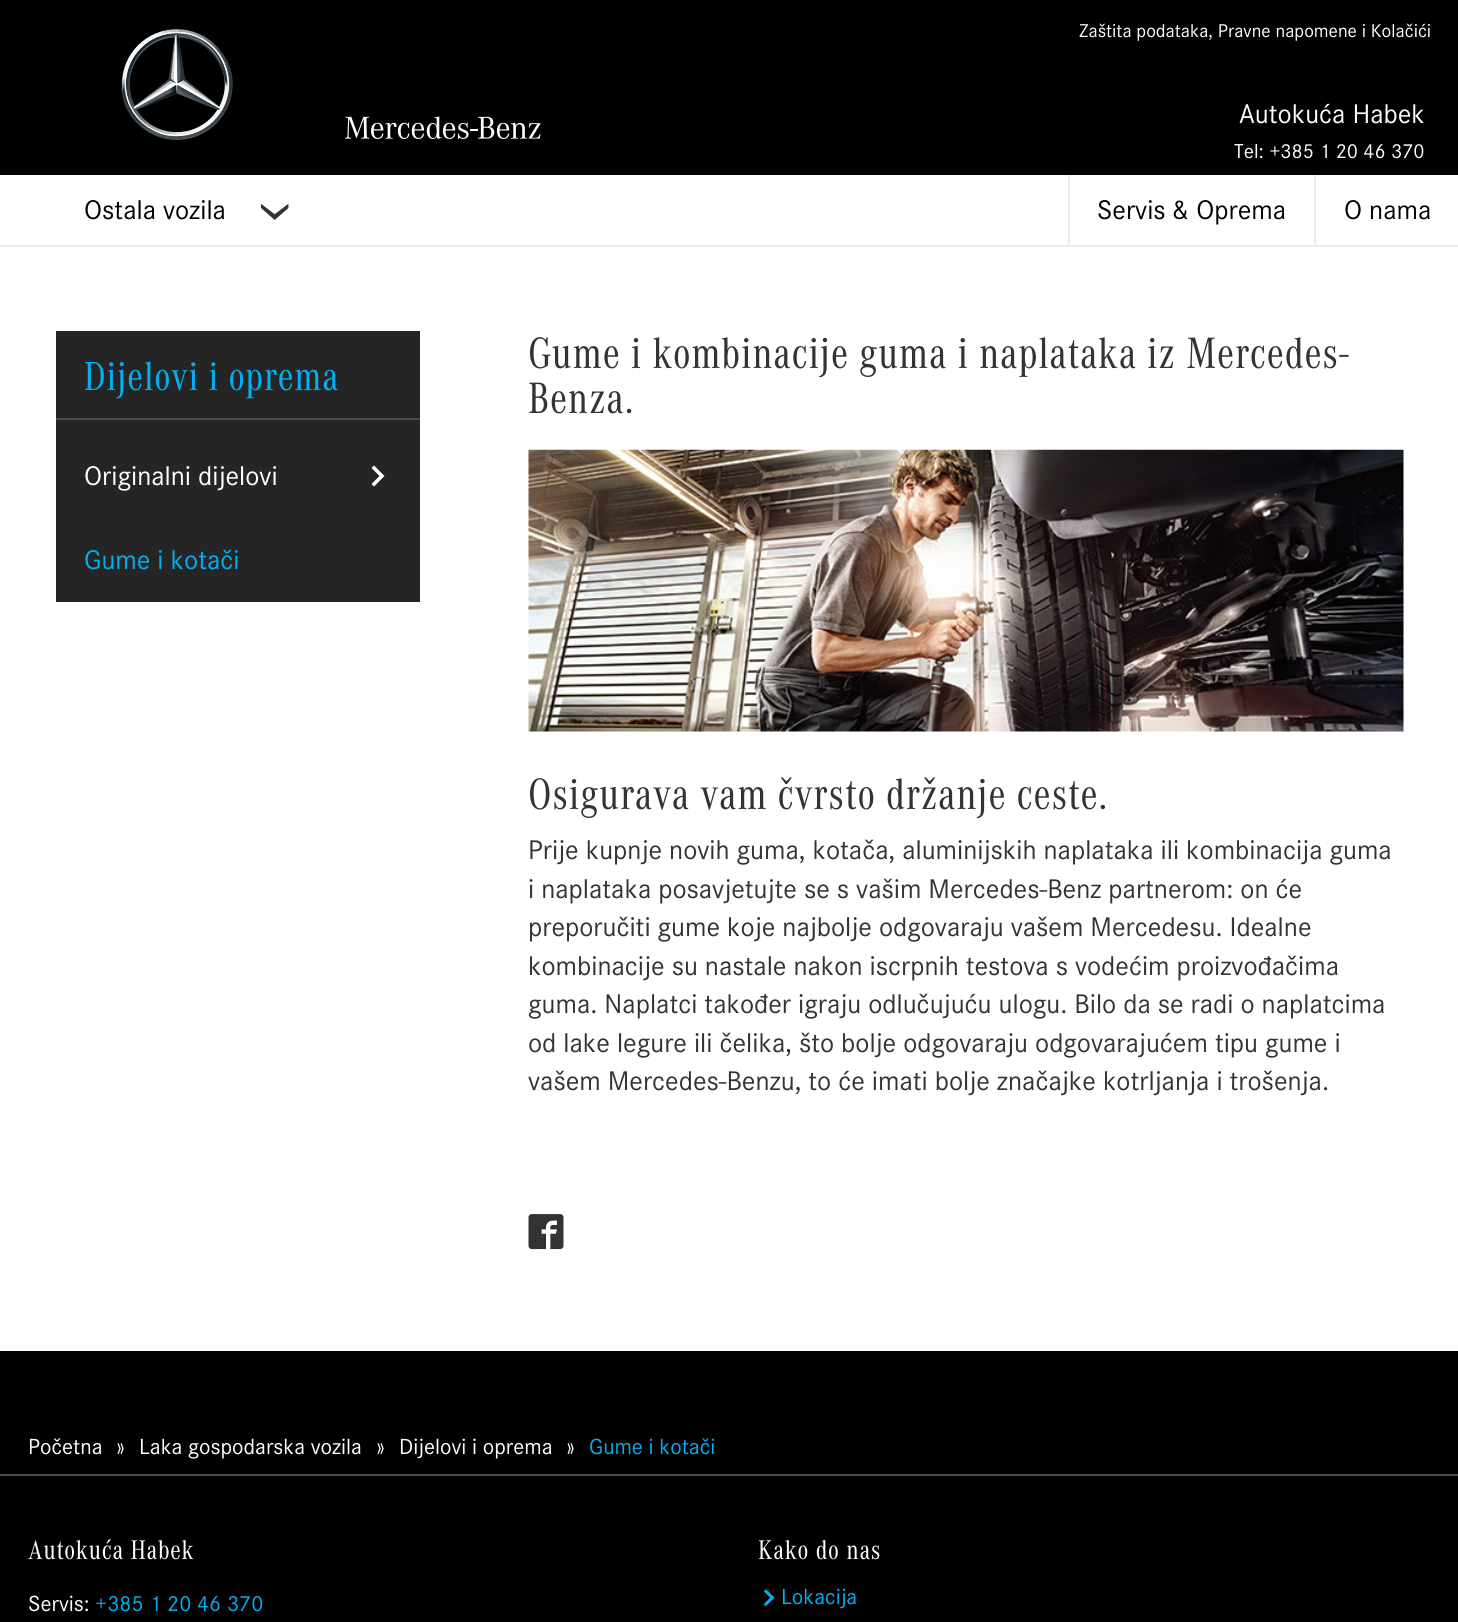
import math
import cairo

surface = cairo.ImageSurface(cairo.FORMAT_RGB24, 1458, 1622)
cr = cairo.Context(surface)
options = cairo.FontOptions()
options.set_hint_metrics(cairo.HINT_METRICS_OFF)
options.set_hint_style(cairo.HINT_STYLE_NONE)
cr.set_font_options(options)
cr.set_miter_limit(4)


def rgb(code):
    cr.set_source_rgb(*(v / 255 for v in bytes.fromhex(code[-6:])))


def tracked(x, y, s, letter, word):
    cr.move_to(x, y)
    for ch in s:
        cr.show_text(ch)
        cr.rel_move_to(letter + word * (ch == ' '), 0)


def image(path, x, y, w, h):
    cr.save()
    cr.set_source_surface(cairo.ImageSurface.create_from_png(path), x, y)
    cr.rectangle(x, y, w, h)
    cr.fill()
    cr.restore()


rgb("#000000")
cr.paint()
image("img/1.png", 121, 29, 112, 111)
image("img/2.png", 345, 116, 196, 23)
rgb("#ffffff")
cr.rectangle(0, 175, 1458, 70)
cr.fill()
image("img/3.png", 261, 203, 28, 17)
for x, y, w, h, color in [
    (0, 245, 1458, 2, "#ededed"),
    (1068, 175, 2, 70, "#ededed"),
    (1314, 175, 2, 70, "#ededed"),
    (0, 247, 1458, 1104, "#ffffff"),
    (56, 331, 364, 271, "#252525"),
    (56, 418, 364, 2, "#4c4c4c"),
]:
    rgb(color)
    cr.rectangle(x, y, w, h)
    cr.fill()
rgb("#ffffff")
cr.new_path()
cr.move_to(374, 486.5)
cr.line_to(371.5, 484)
cr.line_to(379.5, 476)
cr.line_to(371.5, 468)
cr.line_to(374, 465.5)
cr.line_to(384.5, 476)
cr.close_path()
cr.fill()
image("img/4.png", 528, 449, 876, 283)
image("img/5.png", 528, 1214, 36, 36)
rgb("#4c4c4c")
cr.rectangle(0, 1474, 1458, 2)
cr.fill()
image("img/6.png", 763, 1589, 12, 18)
cr.select_font_face("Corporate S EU")
cr.set_font_size(19.25)
rgb("#ffffff")
cr.move_to(1079, 37)
cr.show_text("Zaštita podataka, Pravne napomene i Kolačići")
cr.set_font_size(28)
cr.move_to(1239, 123)
cr.show_text("Autokuća Habek")
cr.set_font_size(21)
cr.move_to(1234, 158)
cr.show_text("Tel: +385 1 20 46 370")
cr.set_font_size(28)
rgb("#000000")
for x, y, s in [
    (84, 219, "Ostala vozila"),
    (1097, 219, "Servis & Oprema"),
    (1344, 219, "O nama"),
]:
    cr.move_to(x, y)
    cr.show_text(s)
cr.select_font_face("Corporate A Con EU")
cr.set_font_size(42)
rgb("#00b0f3")
tracked(84, 390, "Dijelovi i oprema", 0.7, 0)
cr.select_font_face("Corporate S EU")
cr.set_font_size(28)
rgb("#ffffff")
cr.move_to(84, 485)
cr.show_text("Originalni dijelovi")
rgb("#00b0f3")
cr.move_to(84, 569)
cr.show_text("Gume i kotači")
cr.select_font_face("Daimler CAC")
cr.set_font_size(45.5)
rgb("#333333")
for x, y, s in [
    (528, 368, "Gume i kombinacije guma i naplataka iz Mercedes-"),
    (528, 413, "Benza."),
    (528, 809, "Osigurava vam čvrsto držanje ceste."),
]:
    tracked(x, y, s, 0.7, 0)
cr.select_font_face("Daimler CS")
cr.set_font_size(28)
for x, y, s in [
    (528, 859, "Prije kupnje novih guma, kotača, aluminijskih naplataka ili kombinacija guma"),
    (528, 898, "i naplataka posavjetujte se s vašim Mercedes-Benz partnerom: on će"),
    (528, 936, "preporučiti gume koje najbolje odgovaraju vašem Mercedesu. Idealne"),
    (528, 975, "kombinacije su nastale nakon iscrpnih testova s vodećim proizvođačima"),
    (528, 1013, "guma. Naplatci također igraju odlučujuću ulogu. Bilo da se radi o naplatcima"),
    (528, 1052, "od lake legure ili čelika, što bolje odgovaraju odgovarajućem tipu gume i"),
    (528, 1090, "vašem Mercedes-Benzu, to će imati bolje značajke kotrljanja i trošenja."),
]:
    cr.move_to(x, y)
    cr.show_text(s)
cr.select_font_face("Corporate S EU")
cr.set_font_size(22.75)
rgb("#ffffff")
for x, y, s in [
    (28, 1454, "Početna"),
    (116, 1454, "»"),
    (139, 1454, "Laka gospodarska vozila"),
    (376, 1454, "»"),
    (399, 1454, "Dijelovi i oprema"),
    (566, 1454, "»"),
]:
    cr.move_to(x, y)
    cr.show_text(s)
rgb("#00b0f3")
cr.move_to(589, 1454)
cr.show_text("Gume i kotači")
cr.select_font_face("Corporate A Con EU")
cr.set_font_size(28)
rgb("#ffffff")
tracked(28, 1559, "Autokuća Habek", 0.7, 0)
cr.select_font_face("Corporate S EU")
cr.set_font_size(22.75)
cr.move_to(28, 1611)
cr.show_text("Servis:")
rgb("#00b0f3")
cr.move_to(95, 1611)
cr.show_text("+385 1 20 46 370")
cr.select_font_face("Corporate A Con EU")
cr.set_font_size(28)
rgb("#ffffff")
tracked(758, 1559, "Kako do nas", 0.7, 0)
cr.select_font_face("Corporate S EU")
cr.set_font_size(22.75)
rgb("#00b0f3")
cr.move_to(781, 1604)
cr.show_text("Lokacija")
surface.write_to_png("page.png")
